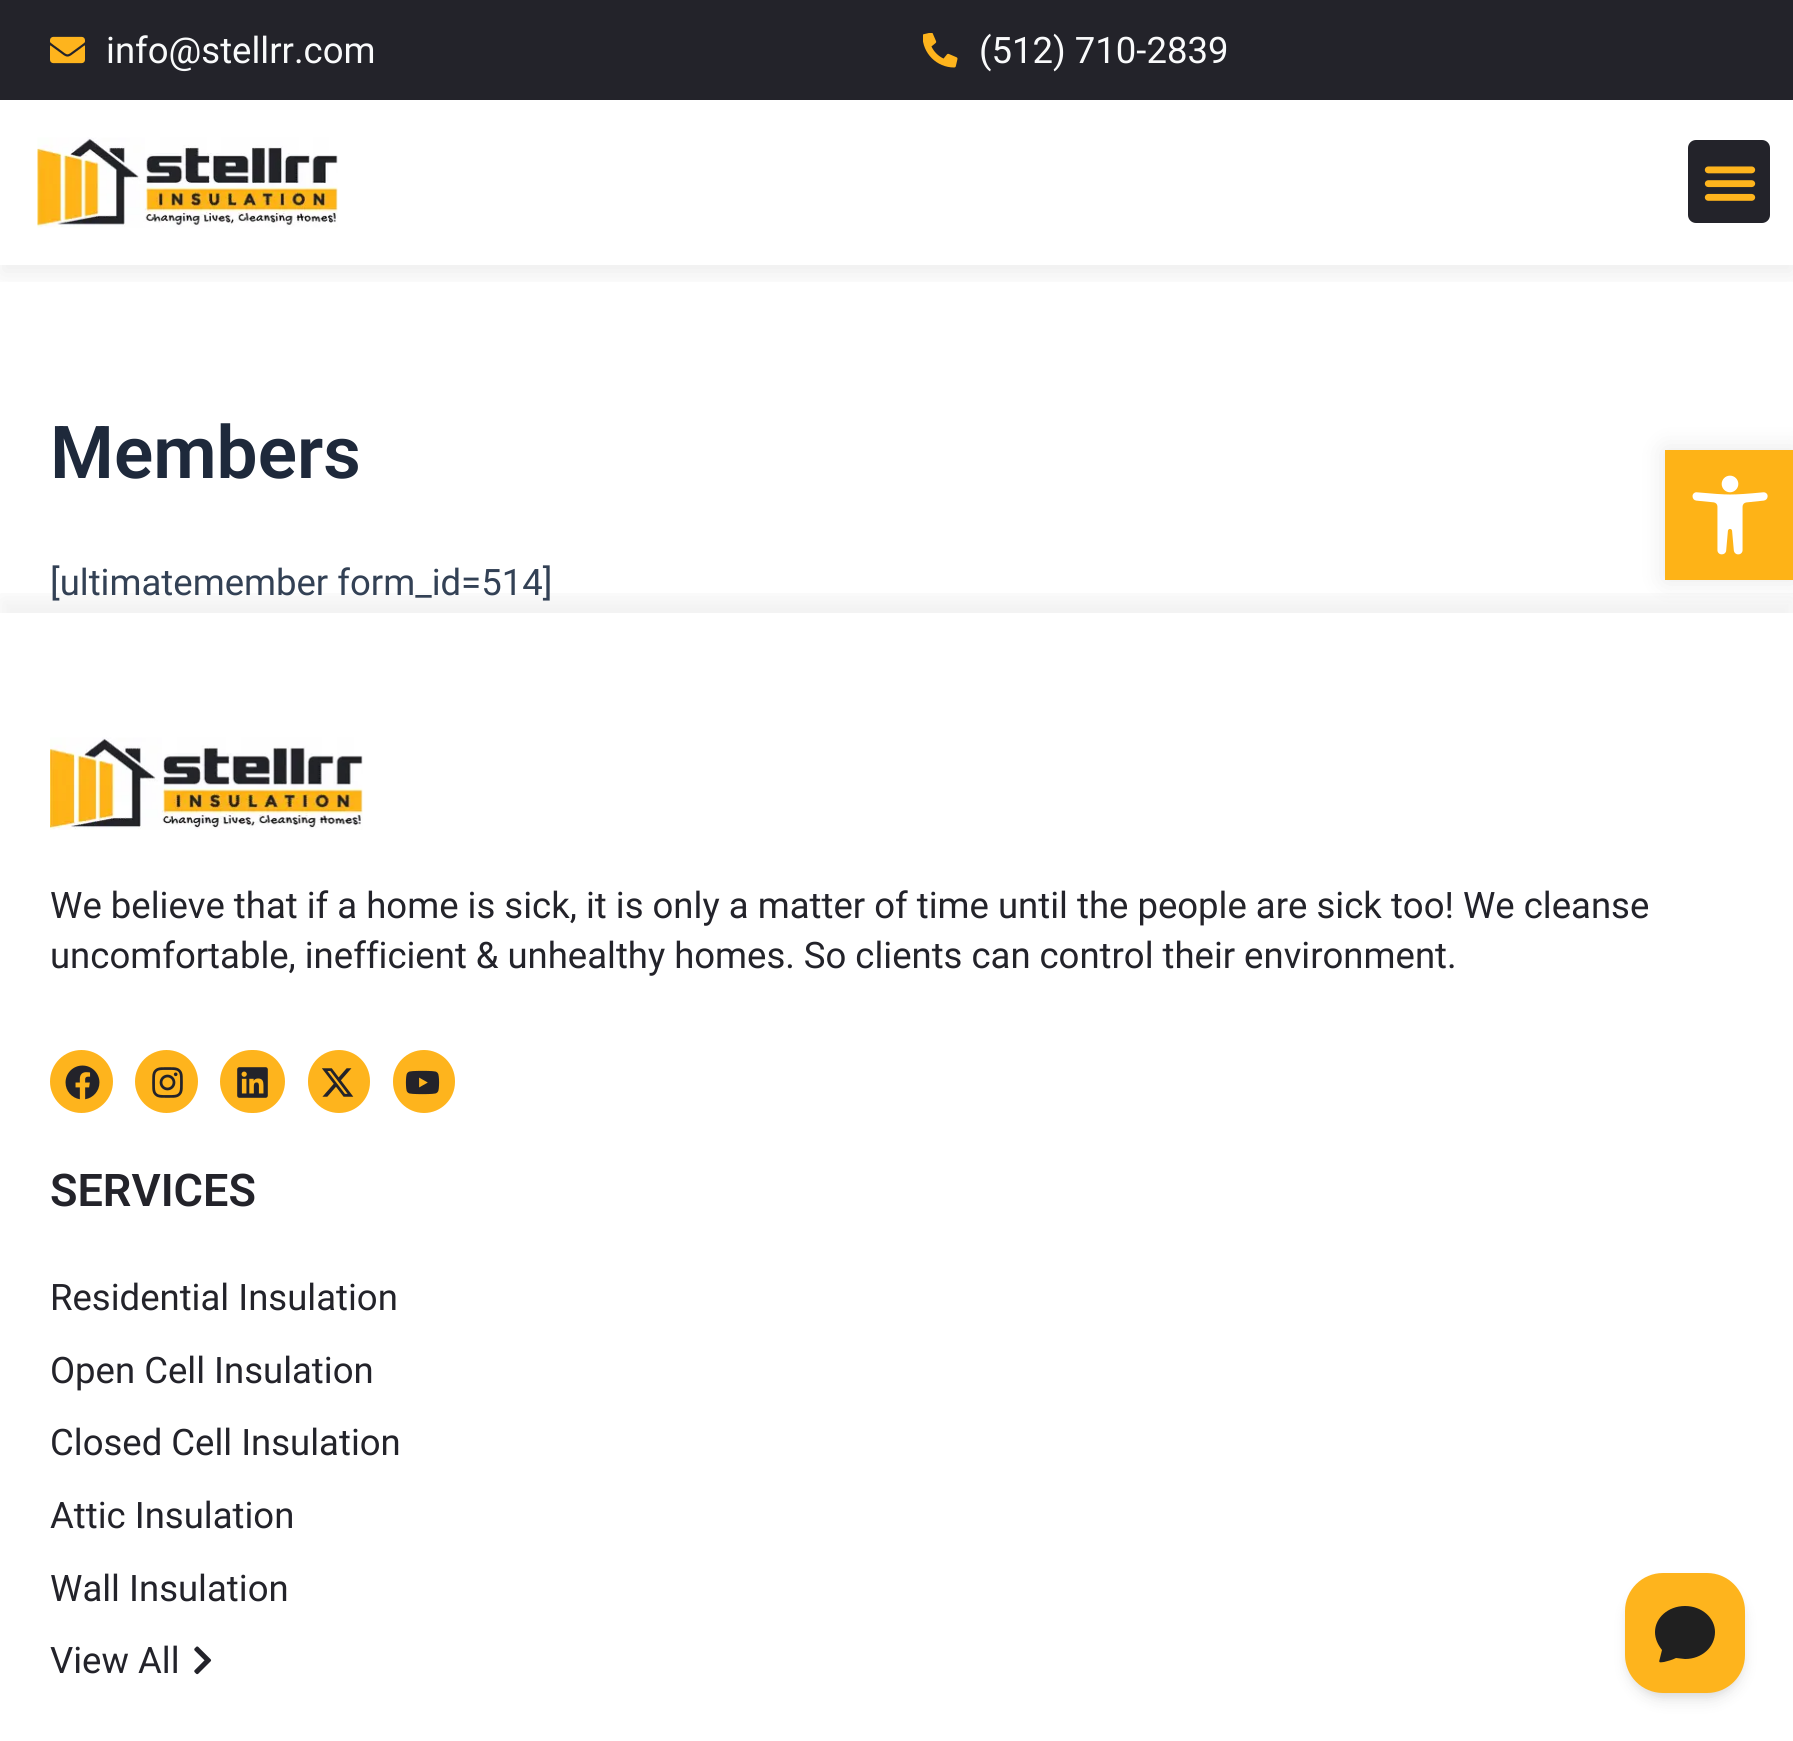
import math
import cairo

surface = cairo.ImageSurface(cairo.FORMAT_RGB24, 1793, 1741)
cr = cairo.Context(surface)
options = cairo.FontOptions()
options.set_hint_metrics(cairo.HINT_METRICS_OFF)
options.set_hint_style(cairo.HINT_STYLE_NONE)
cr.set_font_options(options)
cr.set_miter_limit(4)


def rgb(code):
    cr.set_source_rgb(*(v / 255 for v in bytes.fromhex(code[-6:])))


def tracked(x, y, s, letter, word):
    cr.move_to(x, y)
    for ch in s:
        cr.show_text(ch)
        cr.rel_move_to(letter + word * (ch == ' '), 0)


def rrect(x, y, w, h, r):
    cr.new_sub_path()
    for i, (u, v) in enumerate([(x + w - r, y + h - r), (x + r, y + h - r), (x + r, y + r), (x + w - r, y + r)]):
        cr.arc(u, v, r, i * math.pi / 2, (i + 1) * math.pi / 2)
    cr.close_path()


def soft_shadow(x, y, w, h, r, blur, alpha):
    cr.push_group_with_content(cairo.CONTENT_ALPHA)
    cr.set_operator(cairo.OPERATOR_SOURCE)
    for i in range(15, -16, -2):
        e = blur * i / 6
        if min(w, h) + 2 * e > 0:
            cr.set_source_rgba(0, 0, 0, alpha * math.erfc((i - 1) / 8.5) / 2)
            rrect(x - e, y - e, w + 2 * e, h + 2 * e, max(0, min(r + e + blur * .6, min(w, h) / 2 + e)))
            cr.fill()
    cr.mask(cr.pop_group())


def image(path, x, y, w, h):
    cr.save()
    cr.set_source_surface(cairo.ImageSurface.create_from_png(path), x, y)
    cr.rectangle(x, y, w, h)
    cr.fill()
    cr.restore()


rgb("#ffffff")
cr.paint()
rgb("#23232a")
cr.rectangle(0, 0, 1793, 100)
cr.fill()
image("img/1.png", 50, 36, 35, 28)
image("img/2.png", 923, 33, 35, 35)
cr.save()
cr.rectangle(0, 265, 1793, 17)
cr.clip()
rgb("#000000")
soft_shadow(0, 110, 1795, 165, 0, 12.5, 0.07)
cr.restore()
image("img/3.png", 37, 137, 301, 91)
rrect(1688, 140, 82, 83, 8)
cr.fill()
image("img/4.png", 1704, 166, 52, 35)
cr.save()
cr.rectangle(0, 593, 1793, 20)
cr.clip()
rgb("#000000")
soft_shadow(0, 598, 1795, 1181, 0, 12.5, 0.06)
cr.restore()
image("img/5.png", 50, 737, 313, 93)
rgb("#feb41d")
cr.arc(81.5, 1081.5, 31.5, 0, 2 * math.pi)
cr.fill()
image("img/6.png", 65, 1065, 35, 35)
cr.arc(166.5, 1081.5, 31.5, 0, 2 * math.pi)
cr.fill()
image("img/7.png", 152, 1067, 31, 31)
rrect(220, 1050, 65, 63, 31.5)
cr.fill()
image("img/8.png", 237, 1067, 31, 31)
rrect(308, 1050, 62, 63, 31)
cr.fill()
image("img/9.png", 322, 1068, 32, 29)
rrect(393, 1050, 62, 63, 31)
cr.fill()
image("img/10.png", 405, 1070, 35, 25)
image("img/11.png", 194, 1646, 18, 29)
rgb("#000000")
soft_shadow(1665, 450, 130, 130, 0, 12.5, 0.1)
rgb("#feb317")
cr.rectangle(1665, 450, 128, 130)
cr.fill()
image("img/12.png", 1692, 475, 76, 80)
rgb("#000000")
soft_shadow(1630, 1583, 110, 110, 33, 5, 0.1)
soft_shadow(1628, 1585, 115, 115, 35, 7.5, 0.1)
rgb("#feb41d")
rrect(1625, 1573, 120, 120, 38)
cr.fill()
rgb("#202020")
cr.new_path()
cr.move_to(1685, 1659)
cr.curve_to(1702, 1659, 1715, 1647, 1715, 1632)
cr.curve_to(1715, 1618, 1702, 1606, 1685, 1606)
cr.curve_to(1668, 1606, 1655, 1618, 1655, 1632)
cr.curve_to(1655, 1639, 1658, 1645, 1662, 1650)
cr.line_to(1660, 1658)
cr.curve_to(1659, 1662, 1658, 1663, 1664, 1662)
cr.curve_to(1668, 1661, 1672, 1660, 1676, 1658)
cr.close_path()
cr.fill()
cr.select_font_face("Roboto")
cr.set_font_size(36.5)
rgb("#f9fafb")
cr.move_to(106, 63)
cr.show_text("info@stellrr.com")
cr.move_to(979, 63)
cr.show_text("(512) 710-2839")
cr.select_font_face("Roboto SemiBold")
cr.set_font_size(73)
rgb("#1e293b")
cr.move_to(50, 478)
cr.show_text("Members")
cr.select_font_face("Roboto")
cr.set_font_size(36.5)
rgb("#334155")
cr.move_to(50, 595)
cr.show_text("[ultimatemember form_id=514]")
rgb("#23232a")
cr.move_to(50, 918)
cr.show_text("We believe that if a home is sick, it is only a matter of time until the people are sick too! We cleanse")
tracked(50, 968, "uncomfortable, inefficient & unhealthy homes. So clients can control their environment.", 0, -0.1)
cr.select_font_face("Roboto SemiBold")
cr.set_font_size(45)
cr.move_to(50, 1206)
cr.show_text("SERVICES")
cr.select_font_face("Roboto")
cr.set_font_size(36.5)
for x, y, s in [
    (50, 1310, "Residential Insulation"),
    (50, 1383, "Open Cell Insulation"),
    (50, 1455, "Closed Cell Insulation"),
    (50, 1528, "Attic Insulation"),
    (50, 1601, "Wall Insulation"),
    (50, 1673, "View All"),
]:
    cr.move_to(x, y)
    cr.show_text(s)
surface.write_to_png("page.png")
